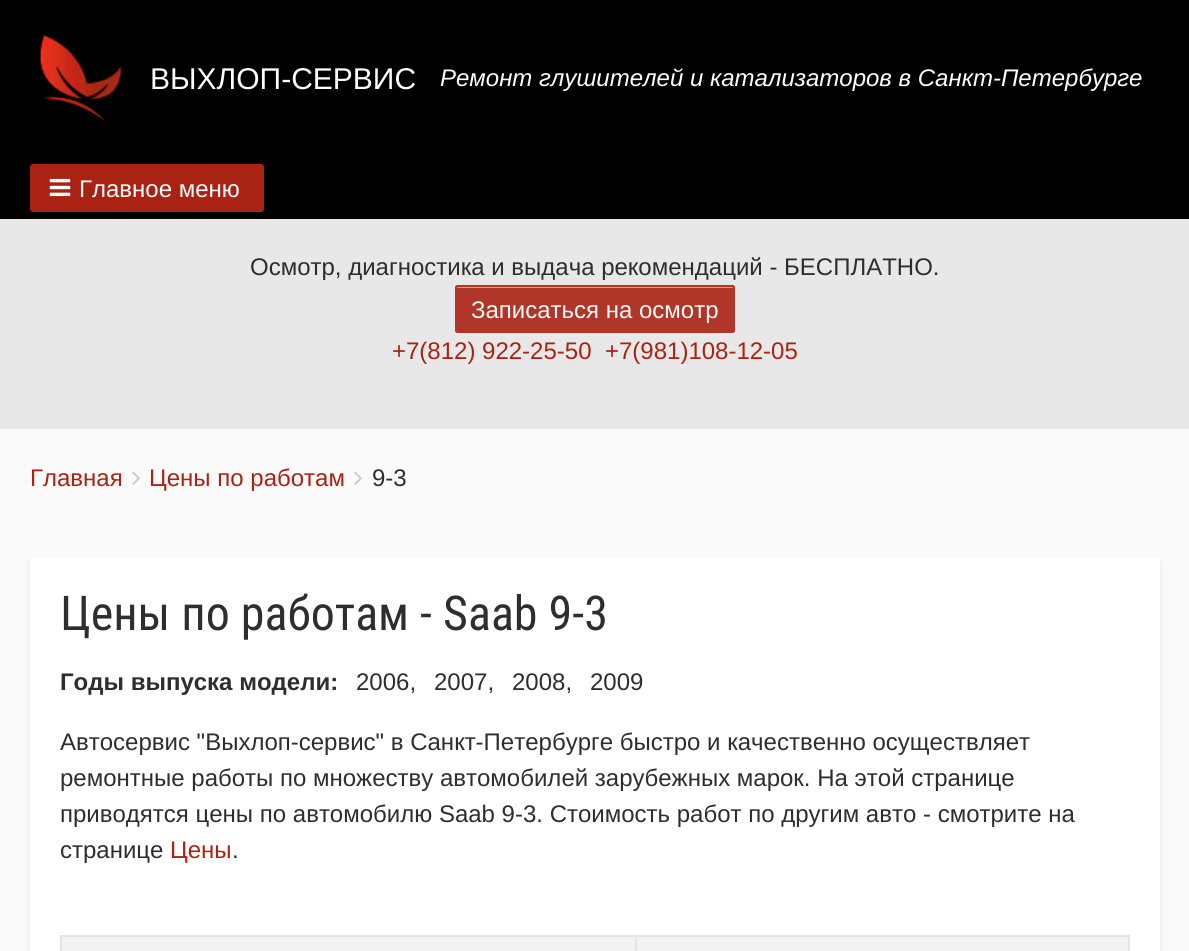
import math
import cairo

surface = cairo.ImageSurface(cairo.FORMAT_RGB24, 1189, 951)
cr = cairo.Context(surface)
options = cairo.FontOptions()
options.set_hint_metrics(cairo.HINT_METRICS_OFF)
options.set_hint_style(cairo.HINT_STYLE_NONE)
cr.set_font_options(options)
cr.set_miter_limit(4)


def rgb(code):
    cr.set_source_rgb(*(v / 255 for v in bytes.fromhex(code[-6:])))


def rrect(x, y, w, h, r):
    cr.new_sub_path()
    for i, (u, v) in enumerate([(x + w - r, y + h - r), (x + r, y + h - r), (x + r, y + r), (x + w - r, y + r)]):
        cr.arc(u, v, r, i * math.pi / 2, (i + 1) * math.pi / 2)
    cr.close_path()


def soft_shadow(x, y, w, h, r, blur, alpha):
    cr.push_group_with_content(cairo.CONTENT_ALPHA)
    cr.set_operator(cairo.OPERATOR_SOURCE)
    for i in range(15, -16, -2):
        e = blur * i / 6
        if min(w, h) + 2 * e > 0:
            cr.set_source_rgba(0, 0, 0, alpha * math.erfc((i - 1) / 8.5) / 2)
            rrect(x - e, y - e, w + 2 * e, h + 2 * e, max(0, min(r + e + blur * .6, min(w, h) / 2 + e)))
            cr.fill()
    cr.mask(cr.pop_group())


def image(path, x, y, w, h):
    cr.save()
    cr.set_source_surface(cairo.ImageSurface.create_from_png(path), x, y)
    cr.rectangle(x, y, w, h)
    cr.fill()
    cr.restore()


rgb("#fafafa")
cr.paint()
rgb("#000000")
cr.rectangle(0, 0, 1189, 219)
cr.fill()
image("img/1.png", 39, 35, 83, 87)
rgb("#a92214")
rrect(30, 164, 234, 48, 3)
cr.fill()
image("img/2.png", 49, 178, 22, 19)
rgb("#e8e8e8")
cr.rectangle(0, 219, 1189, 210)
cr.fill()
rgb("#af3629")
rrect(455, 285, 280, 48, 3)
cr.fill()
rgb("#d69a93")
cr.new_path()
cr.move_to(458, 288)
cr.line_to(732, 288)
cr.curve_to(733, 288, 734, 289, 734, 290)
cr.curve_to(734, 289, 734, 287, 732, 287)
cr.line_to(458, 287)
cr.line_to(456, 287)
cr.line_to(456, 290)
cr.curve_to(456, 289, 457, 288, 458, 288)
cr.close_path()
cr.fill()
rrect(456, 286, 278, 46, 2)
rgb("#af3629")
cr.stroke()
image("img/3.png", 132, 471, 8, 14)
image("img/3.png", 354, 471, 8, 14)
rgb("#000000")
soft_shadow(30, 561, 1130, 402, 3, 3, 0.1)
rgb("#ffffff")
rrect(30, 557, 1130, 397, 3)
cr.fill()
for x, y, w, h, color in [
    (62, 937, 1066, 14, "#f3f3f3"),
    (60, 935, 1070, 2, "#e4e4e4"),
    (1128, 935, 2, 16, "#e4e4e4"),
    (60, 935, 2, 16, "#e4e4e4"),
    (635, 935, 2, 16, "#e4e4e4"),
]:
    rgb(color)
    cr.rectangle(x, y, w, h)
    cr.fill()
cr.select_font_face("Liberation Sans")
cr.set_font_size(30)
rgb("#ffffff")
cr.move_to(150, 89)
cr.show_text("ВЫХЛОП-СЕРВИС")
cr.select_font_face("Liberation Sans", cairo.FONT_SLANT_ITALIC)
cr.set_font_size(24)
cr.move_to(440, 86)
cr.show_text("Ремонт глушителей и катализаторов в Санкт-Петербурге")
cr.select_font_face("Liberation Sans")
cr.move_to(79, 197)
cr.show_text("Главное меню")
rgb("#2e2e2e")
cr.move_to(250, 275)
cr.show_text("Осмотр, диагностика и выдача рекомендаций - БЕСПЛАТНО.")
rgb("#f9f9f9")
cr.move_to(471, 318)
cr.show_text("Записаться на осмотр")
rgb("#a92214")
for x, y, s in [
    (392, 359, "+7(812) 922-25-50"),
    (605, 359, "+7(981)108-12-05"),
    (30, 486, "Главная"),
    (149, 486, "Цены по работам"),
]:
    cr.move_to(x, y)
    cr.show_text(s)
rgb("#2e2e2e")
cr.move_to(372, 486)
cr.show_text("9-3")
cr.select_font_face("Roboto Condensed")
cr.set_font_size(48)
cr.move_to(60, 630)
cr.show_text("Цены по работам - Saab 9-3")
cr.select_font_face("Liberation Sans", cairo.FONT_SLANT_NORMAL, cairo.FONT_WEIGHT_BOLD)
cr.set_font_size(24)
cr.move_to(60, 690)
cr.show_text("Годы выпуска модели:")
cr.select_font_face("Liberation Sans")
for x, y, s in [
    (356, 690, "2006,"),
    (434, 690, "2007,"),
    (512, 690, "2008,"),
    (590, 690, "2009"),
    (60, 750, "Автосервис \"Выхлоп-сервис\" в Санкт-Петербурге быстро и качественно осуществляет"),
    (60, 786, "ремонтные работы по множеству автомобилей зарубежных марок. На этой странице"),
    (60, 822, "приводятся цены по автомобилю Saab 9-3. Стоимость работ по другим авто - смотрите на"),
    (60, 858, "странице"),
]:
    cr.move_to(x, y)
    cr.show_text(s)
rgb("#a92214")
cr.move_to(170, 858)
cr.show_text("Цены")
rgb("#2e2e2e")
cr.move_to(232, 858)
cr.show_text(".")
surface.write_to_png("page.png")
